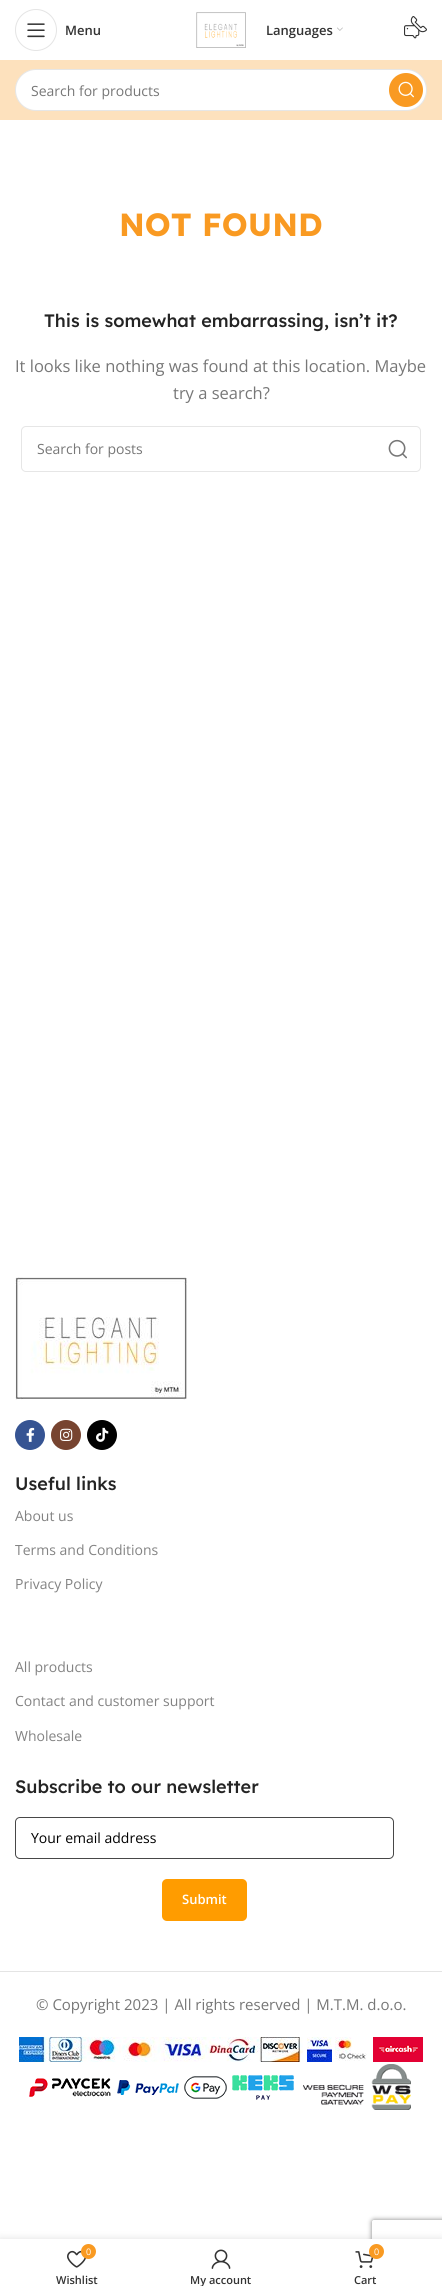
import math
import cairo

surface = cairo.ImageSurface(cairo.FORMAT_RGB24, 442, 2294)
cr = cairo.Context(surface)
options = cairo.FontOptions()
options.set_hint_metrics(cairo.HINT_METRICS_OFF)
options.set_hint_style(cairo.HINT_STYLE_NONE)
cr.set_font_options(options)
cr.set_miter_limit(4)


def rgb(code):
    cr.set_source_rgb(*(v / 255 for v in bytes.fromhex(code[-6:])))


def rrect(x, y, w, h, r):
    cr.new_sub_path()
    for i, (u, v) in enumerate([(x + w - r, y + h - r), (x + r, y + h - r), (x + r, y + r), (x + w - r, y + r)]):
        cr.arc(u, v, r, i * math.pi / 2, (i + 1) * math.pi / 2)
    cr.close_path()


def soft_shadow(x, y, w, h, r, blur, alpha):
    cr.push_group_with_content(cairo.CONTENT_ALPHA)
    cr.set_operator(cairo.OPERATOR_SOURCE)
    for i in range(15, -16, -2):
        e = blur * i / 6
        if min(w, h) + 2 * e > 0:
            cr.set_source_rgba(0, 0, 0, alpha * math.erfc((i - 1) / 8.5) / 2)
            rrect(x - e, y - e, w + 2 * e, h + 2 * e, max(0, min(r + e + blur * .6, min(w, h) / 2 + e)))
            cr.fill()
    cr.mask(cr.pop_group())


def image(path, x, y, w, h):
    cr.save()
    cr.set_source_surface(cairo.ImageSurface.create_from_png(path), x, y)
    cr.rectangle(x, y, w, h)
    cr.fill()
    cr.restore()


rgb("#ffffff")
cr.paint()
cr.arc(36, 30, 20.5, 0, 2 * math.pi)
rgb("#e4e4e4")
cr.set_line_width(1)
cr.stroke()
image("img/1.png", 27, 23, 18, 15)
image("img/2.png", 196, 12, 50, 36)
image("img/3.png", 337, 27, 6, 4)
image("img/4.png", 404, 16, 23, 23)
rgb("#fde1bd")
cr.rectangle(0, 60, 442, 60)
cr.fill()
rgb("#ffffff")
rrect(15, 69, 412, 42, 21)
cr.fill()
rrect(15.5, 69.5, 411, 41, 20.5)
cr.set_source_rgba(0, 0, 0, 0.1)
cr.stroke()
rgb("#f99a22")
cr.arc(406, 90, 17, 0, 2 * math.pi)
cr.fill()
image("img/5.png", 398, 81, 16, 17)
rrect(21.5, 426.5, 399, 45, 4.5)
rgb("#e6e6e6")
cr.stroke()
image("img/6.png", 388, 439, 19, 20)
image("img/7.png", 15, 1277, 172, 123)
rgb("#365493")
cr.arc(30, 1435, 15, 0, 2 * math.pi)
cr.fill()
image("img/8.png", 26, 1427, 9, 15)
rgb("#774430")
cr.arc(66, 1435, 15, 0, 2 * math.pi)
cr.fill()
image("img/9.png", 60, 1428, 13, 13)
rgb("#010101")
cr.arc(102, 1435, 15, 0, 2 * math.pi)
cr.fill()
image("img/10.png", 96, 1427, 13, 15)
rrect(15.5, 1817.5, 378, 41, 4.5)
rgb("#474747")
cr.stroke()
rgb("#ff9c00")
rrect(162, 1879, 85, 42, 5)
cr.fill()
rgb("#e4e4e4")
cr.rectangle(0, 1971, 442, 1)
cr.fill()
image("img/11.png", 19, 2037, 284, 25)
image("img/12.png", 307, 2037, 25, 25)
image("img/13.png", 335, 2037, 32, 24)
image("img/14.png", 373, 2037, 50, 25)
image("img/15.png", 29, 2078, 82, 19)
image("img/16.png", 117, 2080, 62, 15)
image("img/17.png", 184, 2076, 43, 23)
image("img/18.png", 232, 2075, 62, 25)
image("img/19.png", 303, 2064, 108, 46)
rgb("#000000")
soft_shadow(0, 2239, 442, 55, 0, 4.5, 0.12)
cr.save()
cr.set_fill_rule(cairo.FILL_RULE_EVEN_ODD)
cr.new_path()
cr.move_to(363, 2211)
cr.line_to(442, 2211)
cr.line_to(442, 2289)
cr.line_to(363, 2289)
cr.close_path()
cr.move_to(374, 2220)
cr.line_to(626, 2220)
cr.curve_to(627, 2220, 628, 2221, 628, 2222)
cr.line_to(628, 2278)
cr.curve_to(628, 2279, 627, 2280, 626, 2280)
cr.line_to(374, 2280)
cr.curve_to(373, 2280, 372, 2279, 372, 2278)
cr.line_to(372, 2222)
cr.curve_to(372, 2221, 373, 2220, 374, 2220)
cr.close_path()
cr.clip()
rgb("#808080")
soft_shadow(372, 2220, 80, 60, 2, 2.5, 1)
cr.restore()
rgb("#ffffff")
cr.rectangle(0, 2239, 442, 55)
cr.fill()
image("img/20.png", 67, 2250, 20, 18)
rgb("#f99a22")
cr.arc(88.5, 2251.5, 7.5, 0, 2 * math.pi)
cr.fill()
image("img/21.png", 211, 2249, 20, 20)
image("img/22.png", 355, 2251, 19, 17)
cr.arc(376.5, 2251.5, 7.5, 0, 2 * math.pi)
cr.fill()
cr.select_font_face("Open Sans SemiBold")
cr.set_font_size(13)
rgb("#333333")
cr.move_to(65, 35)
cr.show_text("Menu")
cr.move_to(266, 35)
cr.show_text("Languages")
cr.select_font_face("Open Sans")
cr.set_font_size(14)
rgb("#777777")
cr.move_to(31, 96)
cr.show_text("Search for products")
cr.select_font_face("Lexend Deca", cairo.FONT_SLANT_NORMAL, cairo.FONT_WEIGHT_BOLD)
cr.set_font_size(32)
rgb("#f99a22")
cr.move_to(119, 236)
cr.show_text("NOT FOUND")
cr.select_font_face("Lexend Deca Medium")
cr.set_font_size(18)
rgb("#242424")
cr.move_to(44, 327)
cr.show_text("This is somewhat embarrassing, isn’t it?")
cr.select_font_face("Open Sans")
cr.set_font_size(16.5)
rgb("#777777")
cr.move_to(15, 372)
cr.show_text("It looks like nothing was found at this location. Maybe")
cr.move_to(173, 399)
cr.show_text("try a search?")
cr.set_font_size(14)
cr.move_to(37, 454)
cr.show_text("Search for posts")
cr.select_font_face("Lexend Deca Medium")
cr.set_font_size(18)
rgb("#242424")
cr.move_to(15, 1490)
cr.show_text("Useful links")
cr.select_font_face("Open Sans")
cr.set_font_size(14)
rgb("#838383")
for x, y, s in [
    (15, 1521, "About us"),
    (15, 1555, "Terms and Conditions"),
    (15, 1589, "Privacy Policy"),
    (15, 1672, "All products"),
    (15, 1706, "Contact and customer support"),
    (15, 1741, "Wholesale"),
]:
    cr.move_to(x, y)
    cr.show_text(s)
cr.select_font_face("Lexend Deca Medium")
cr.set_font_size(18)
rgb("#242424")
cr.move_to(15, 1793)
cr.show_text("Subscribe to our newsletter")
cr.select_font_face("Open Sans")
cr.set_font_size(14)
rgb("#000000")
cr.move_to(31, 1843)
cr.show_text("Your email address")
cr.select_font_face("Open Sans SemiBold")
cr.set_font_size(13)
rgb("#ffffff")
cr.move_to(182, 1904)
cr.show_text("Submit")
cr.select_font_face("Open Sans")
cr.set_font_size(15)
rgb("#777777")
cr.move_to(36, 2010)
cr.show_text("© Copyright 2023 | All rights reserved | M.T.M. d.o.o.")
cr.set_font_size(9)
rgb("#ffffff")
cr.move_to(86, 2255)
cr.show_text("0")
cr.select_font_face("Open Sans SemiBold")
cr.set_font_size(11)
rgb("#333333")
cr.move_to(56, 2284)
cr.show_text("Wishlist")
cr.save()
cr.rectangle(159, 2273, 124, 13)
cr.clip()
cr.move_to(190, 2284)
cr.show_text("My account")
cr.restore()
cr.select_font_face("Open Sans")
cr.set_font_size(9)
rgb("#ffffff")
cr.move_to(374, 2255)
cr.show_text("0")
cr.select_font_face("Open Sans SemiBold")
cr.set_font_size(11)
rgb("#333333")
cr.move_to(354, 2284)
cr.show_text("Cart")
surface.write_to_png("page.png")
